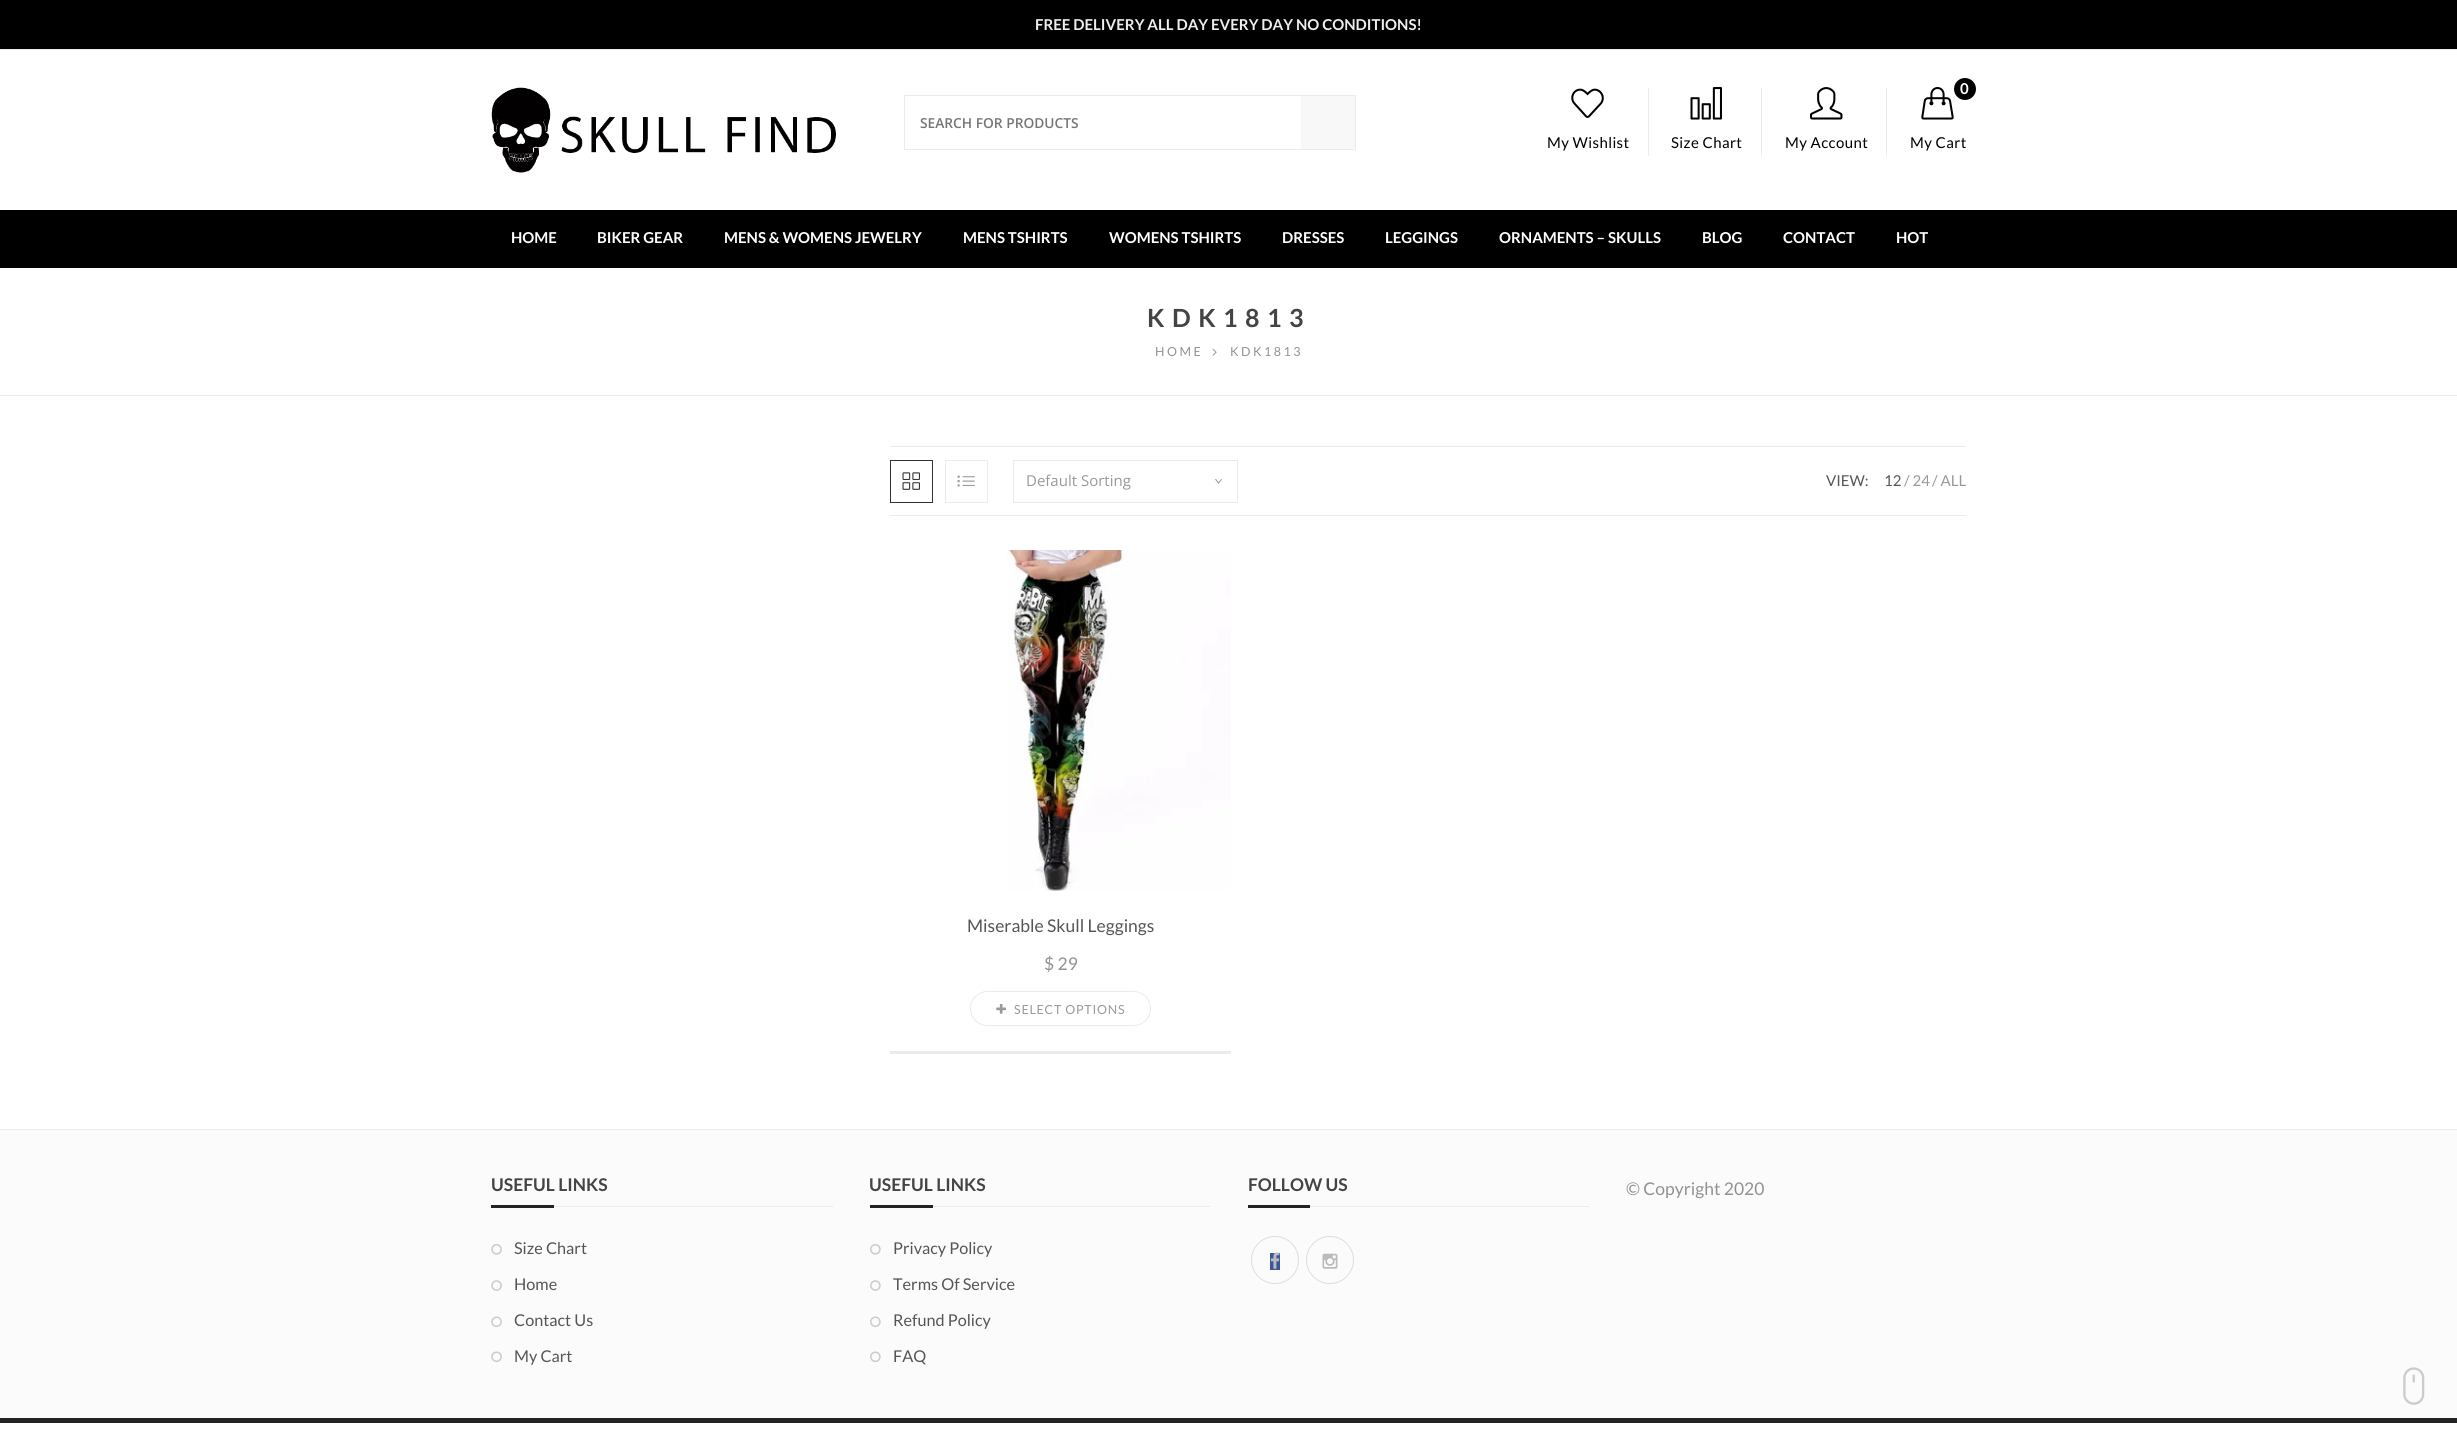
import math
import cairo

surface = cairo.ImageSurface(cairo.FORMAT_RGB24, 2457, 1432)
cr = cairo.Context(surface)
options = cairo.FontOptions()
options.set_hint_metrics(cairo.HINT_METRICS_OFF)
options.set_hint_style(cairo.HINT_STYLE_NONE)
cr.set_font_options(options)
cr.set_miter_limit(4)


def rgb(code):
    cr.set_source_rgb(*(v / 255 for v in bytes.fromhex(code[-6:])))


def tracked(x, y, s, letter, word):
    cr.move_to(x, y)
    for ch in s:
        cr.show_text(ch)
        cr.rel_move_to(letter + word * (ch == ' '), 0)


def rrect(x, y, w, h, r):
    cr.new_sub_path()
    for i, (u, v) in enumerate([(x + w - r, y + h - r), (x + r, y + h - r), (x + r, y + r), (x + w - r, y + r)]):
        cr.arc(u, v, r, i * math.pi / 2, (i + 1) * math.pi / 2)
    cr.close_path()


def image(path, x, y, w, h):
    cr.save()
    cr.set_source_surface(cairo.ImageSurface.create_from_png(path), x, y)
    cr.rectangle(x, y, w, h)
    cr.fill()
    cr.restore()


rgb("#ffffff")
cr.paint()
rgb("#000000")
cr.rectangle(0, 0, 2457, 49)
cr.fill()
rgb("#ebebeb")
cr.rectangle(0, 49, 2457, 1)
cr.fill()
image("img/1.png", 491, 87, 345, 86)
cr.rectangle(904.5, 95.5, 451, 54)
cr.set_line_width(1)
cr.stroke()
rgb("#f8f8f8")
cr.rectangle(1301, 96, 54, 53)
cr.fill()
rgb("#ebebeb")
cr.rectangle(1648, 88, 1, 68)
cr.fill()
image("img/2.png", 1571, 88, 33, 30)
cr.rectangle(1761, 88, 1, 68)
cr.fill()
image("img/3.png", 1690, 87, 32, 33)
cr.rectangle(1886, 88, 1, 68)
cr.fill()
image("img/4.png", 1810, 87, 33, 33)
image("img/5.png", 1921, 87, 33, 33)
rgb("#000000")
cr.arc(1965, 89, 11, 0, 2 * math.pi)
cr.fill()
cr.rectangle(0, 210, 2457, 58)
cr.fill()
rgb("#ebebeb")
cr.rectangle(0, 395, 2457, 1)
cr.fill()
image("img/6.png", 1212, 348, 5, 8)
cr.rectangle(890, 446, 1076, 1)
cr.fill()
cr.rectangle(890, 515, 1076, 1)
cr.fill()
cr.rectangle(890.5, 460.5, 42, 42)
rgb("#333333")
cr.stroke()
image("img/7.png", 902, 472, 18, 18)
cr.rectangle(945.5, 460.5, 42, 42)
rgb("#ebebeb")
cr.stroke()
image("img/8.png", 957, 475, 18, 12)
cr.rectangle(1013.5, 460.5, 224, 42)
cr.stroke()
image("img/9.png", 1215, 479, 7, 5)
cr.rectangle(890, 1051, 341, 3)
cr.fill()
image("img/10.png", 1007, 550, 224, 341)
rrect(970.5, 991.5, 180, 34, 17)
cr.stroke()
image("img/11.png", 996, 1003, 11, 11)
for x, y, w, h, color in [
    (0, 1130, 2457, 288, "#fbfbfb"),
    (0, 1129, 2457, 1, "#ebebeb"),
    (0, 1418, 2457, 5, "#222323"),
    (554, 1206, 279, 1, "#ebebeb"),
    (491, 1205, 63, 3, "#222323"),
]:
    rgb(color)
    cr.rectangle(x, y, w, h)
    cr.fill()
image("img/12.png", 491, 1244, 11, 11)
image("img/13.png", 491, 1280, 11, 11)
image("img/14.png", 491, 1316, 11, 12)
image("img/14.png", 491, 1351, 11, 12)
rgb("#ebebeb")
cr.rectangle(933, 1206, 277, 1)
cr.fill()
rgb("#222323")
cr.rectangle(870, 1205, 63, 3)
cr.fill()
image("img/15.png", 870, 1244, 11, 11)
image("img/16.png", 870, 1280, 11, 11)
image("img/17.png", 870, 1316, 11, 12)
image("img/17.png", 870, 1351, 11, 12)
rgb("#ebebeb")
cr.rectangle(1310, 1206, 279, 1)
cr.fill()
rgb("#222323")
cr.rectangle(1248, 1205, 62, 3)
cr.fill()
cr.arc(1275, 1260, 23.5, 0, 2 * math.pi)
rgb("#dddddd")
cr.stroke()
rgb("#39579a")
cr.rectangle(1270, 1253, 10, 17)
cr.fill()
image("img/18.png", 1270, 1252, 10, 17)
cr.arc(1330, 1260, 23.5, 0, 2 * math.pi)
rgb("#dddddd")
cr.stroke()
image("img/19.png", 1322, 1253, 16, 16)
image("img/20.png", 2403, 1367, 22, 38)
cr.select_font_face("Lato", cairo.FONT_SLANT_NORMAL, cairo.FONT_WEIGHT_BOLD)
cr.set_font_size(15)
rgb("#eeeeee")
cr.move_to(1035, 30)
cr.show_text("FREE DELIVERY ALL DAY EVERY DAY NO CONDITIONS!")
cr.select_font_face("Open Sans SemiBold")
cr.set_font_size(13.75)
rgb("#757575")
cr.move_to(920, 128)
cr.show_text("SEARCH FOR PRODUCTS")
cr.select_font_face("Lato")
cr.set_font_size(15)
rgb("#000000")
for x, y, s in [
    (1547, 148, "My Wishlist"),
    (1671, 148, "Size Chart"),
    (1785, 148, "My Account"),
]:
    tracked(x, y, s, 0.4, 0)
cr.select_font_face("Lato", cairo.FONT_SLANT_NORMAL, cairo.FONT_WEIGHT_BOLD)
rgb("#ffffff")
tracked(1960, 94, "0", 0.4, 0)
cr.select_font_face("Lato")
rgb("#000000")
tracked(1910, 148, "My Cart", 0.4, 0)
cr.select_font_face("Lato", cairo.FONT_SLANT_NORMAL, cairo.FONT_WEIGHT_BOLD)
rgb("#ffffff")
for x, y, s in [
    (511, 243, "HOME"),
    (597, 243, "BIKER GEAR"),
    (724, 243, "MENS & WOMENS JEWELRY"),
    (963, 243, "MENS TSHIRTS"),
    (1109, 243, "WOMENS TSHIRTS"),
    (1282, 243, "DRESSES"),
    (1385, 243, "LEGGINGS"),
    (1499, 243, "ORNAMENTS – SKULLS"),
    (1702, 243, "BLOG"),
    (1783, 243, "CONTACT"),
    (1896, 243, "HOT"),
]:
    cr.move_to(x, y)
    cr.show_text(s)
cr.set_font_size(25)
rgb("#444444")
tracked(1147, 327, "KDK1813", 7.5, 0)
cr.select_font_face("Lato")
cr.set_font_size(12.5)
rgb("#929292")
tracked(1155, 356, "HOME", 2.5, 0)
tracked(1230, 356, "KDK1813", 2.5, 0)
cr.select_font_face("Open Sans")
cr.set_font_size(15)
rgb("#999999")
cr.move_to(1026, 486)
cr.show_text("Default Sorting")
cr.select_font_face("Lato")
rgb("#555555")
cr.move_to(1826, 486)
cr.show_text("VIEW:")
cr.move_to(1884, 486)
cr.show_text("12")
rgb("#999999")
cr.move_to(1904, 486)
cr.show_text("/ 24")
cr.move_to(1932, 486)
cr.show_text("/ ALL")
cr.set_font_size(17.5)
rgb("#555555")
cr.move_to(967, 932)
cr.show_text("Miserable Skull Leggings")
rgb("#929292")
cr.move_to(1044, 970)
cr.show_text("$ 29")
cr.set_font_size(12.5)
rgb("#999999")
tracked(1014, 1014, "SELECT OPTIONS", 0.75, 0)
cr.select_font_face("Lato", cairo.FONT_SLANT_NORMAL, cairo.FONT_WEIGHT_BOLD)
cr.set_font_size(17.5)
rgb("#444444")
cr.move_to(491, 1191)
cr.show_text("USEFUL LINKS")
cr.select_font_face("Lato")
cr.set_font_size(16.25)
rgb("#555555")
for x, y, s in [
    (514, 1254, "Size Chart"),
    (514, 1290, "Home"),
    (514, 1326, "Contact Us"),
    (514, 1362, "My Cart"),
]:
    cr.move_to(x, y)
    cr.show_text(s)
cr.select_font_face("Lato", cairo.FONT_SLANT_NORMAL, cairo.FONT_WEIGHT_BOLD)
cr.set_font_size(17.5)
rgb("#444444")
cr.move_to(869, 1191)
cr.show_text("USEFUL LINKS")
cr.select_font_face("Lato")
cr.set_font_size(16.25)
rgb("#555555")
for x, y, s in [
    (893, 1254, "Privacy Policy"),
    (893, 1290, "Terms Of Service"),
    (893, 1326, "Refund Policy"),
    (893, 1362, "FAQ"),
]:
    cr.move_to(x, y)
    cr.show_text(s)
cr.select_font_face("Lato", cairo.FONT_SLANT_NORMAL, cairo.FONT_WEIGHT_BOLD)
cr.set_font_size(17.5)
rgb("#444444")
cr.move_to(1248, 1191)
cr.show_text("FOLLOW US")
cr.select_font_face("Lato")
rgb("#929292")
cr.move_to(1626, 1195)
cr.show_text("© Copyright 2020")
surface.write_to_png("page.png")
